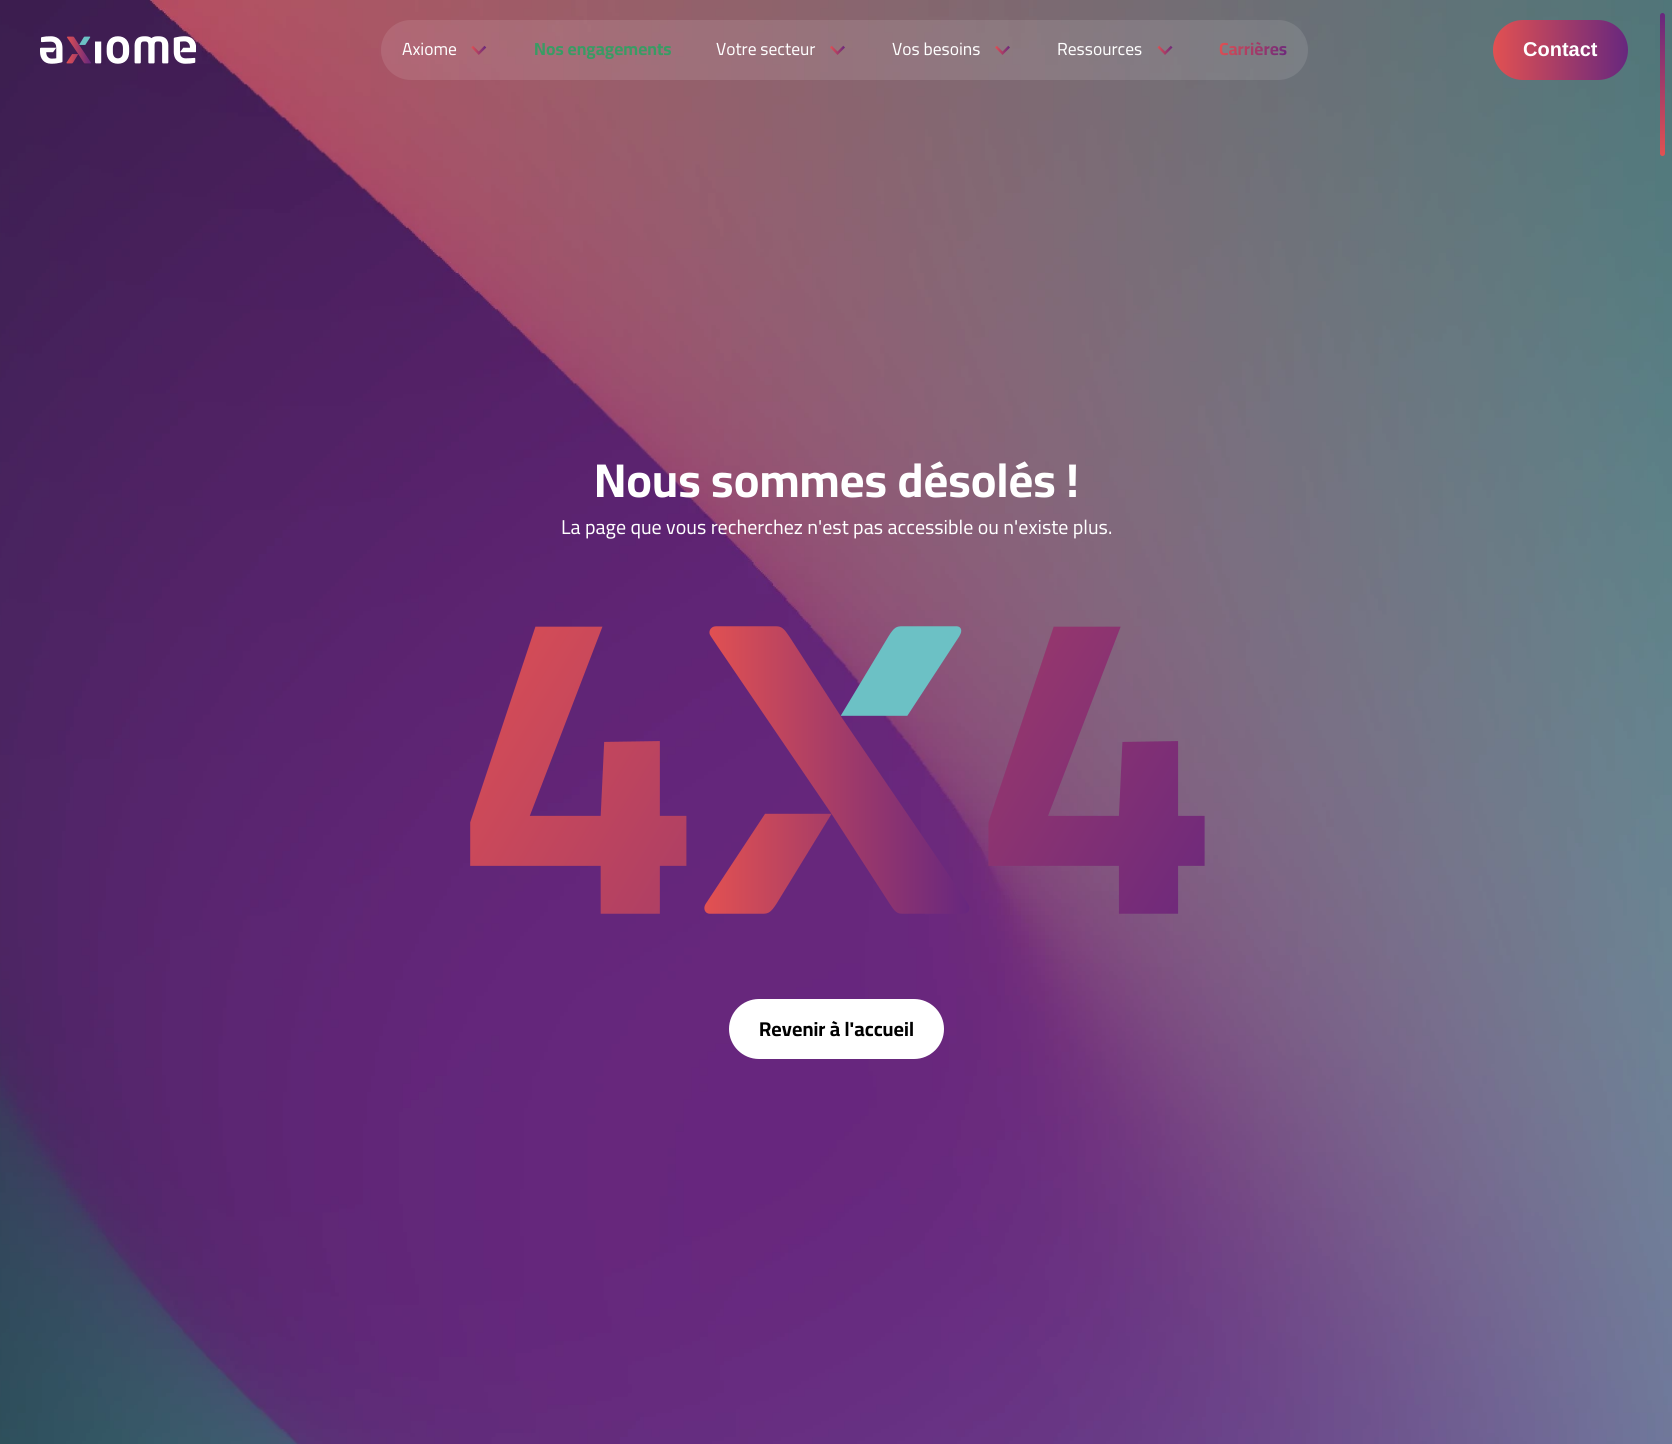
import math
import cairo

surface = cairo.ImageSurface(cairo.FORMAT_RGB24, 1672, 1444)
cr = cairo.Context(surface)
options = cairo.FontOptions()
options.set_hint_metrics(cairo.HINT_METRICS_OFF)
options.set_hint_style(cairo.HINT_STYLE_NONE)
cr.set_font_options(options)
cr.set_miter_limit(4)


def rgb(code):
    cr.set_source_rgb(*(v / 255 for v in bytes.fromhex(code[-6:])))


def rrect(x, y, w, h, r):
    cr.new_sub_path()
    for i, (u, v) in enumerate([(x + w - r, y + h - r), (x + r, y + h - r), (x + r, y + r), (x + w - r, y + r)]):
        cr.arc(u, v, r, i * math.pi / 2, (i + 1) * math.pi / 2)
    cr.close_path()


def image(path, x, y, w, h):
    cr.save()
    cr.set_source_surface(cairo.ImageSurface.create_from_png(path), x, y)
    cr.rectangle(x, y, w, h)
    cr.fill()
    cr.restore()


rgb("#ffffff")
cr.paint()
image("img/6.png", 0, 0, 1672, 1444)
image("img/1.png", 40, 36, 156, 28)
cr.set_source_rgba(1, 1, 1, 0.1)
rrect(381, 20, 927, 60, 30)
cr.fill()
image("img/2.png", 471, 45, 16, 10)
image("img/3.png", 830, 45, 15, 10)
image("img/4.png", 995, 45, 15, 10)
image("img/5.png", 1157, 45, 16, 10)
gradient = cairo.LinearGradient(1492, 50, 1628, 50)
gradient.add_color_stop_rgba(0, 0.89, 0.318, 0.318, 1)
gradient.add_color_stop_rgba(1, 0.404, 0.153, 0.494, 1)
cr.set_source(gradient)
rrect(1493, 20, 135, 60, 30)
cr.fill()
gradient = cairo.LinearGradient(1663, 13, 1663, 157)
gradient.add_color_stop_rgba(0, 0.404, 0.153, 0.494, 1)
gradient.add_color_stop_rgba(1, 0.89, 0.318, 0.318, 1)
cr.set_source(gradient)
rrect(1660, 13, 5, 143, 2.5)
cr.fill()
image("img/7.png", 470, 626, 735, 288)
rgb("#ffffff")
rrect(729, 999, 215, 60, 30)
cr.fill()
cr.select_font_face("Cairo")
cr.set_font_size(17.5)
cr.move_to(402, 55)
cr.show_text("Axiome")
cr.select_font_face("Cairo", cairo.FONT_SLANT_NORMAL, cairo.FONT_WEIGHT_BOLD)
rgb("#399b64")
cr.move_to(534, 55)
cr.show_text("Nos engagements")
cr.select_font_face("Cairo")
rgb("#ffffff")
for x, y, s in [
    (716, 55, "Votre secteur"),
    (892, 55, "Vos besoins"),
    (1057, 55, "Ressources"),
]:
    cr.move_to(x, y)
    cr.show_text(s)
cr.select_font_face("Cairo", cairo.FONT_SLANT_NORMAL, cairo.FONT_WEIGHT_BOLD)
gradient = cairo.LinearGradient(1219, 38, 1288, 62)
gradient.add_color_stop_rgba(0, 0.89, 0.318, 0.318, 1)
gradient.add_color_stop_rgba(1, 0.404, 0.153, 0.494, 1)
cr.set_source(gradient)
cr.move_to(1219, 55)
cr.show_text("Carrières")
cr.select_font_face("Liberation Sans", cairo.FONT_SLANT_NORMAL, cairo.FONT_WEIGHT_BOLD)
cr.set_font_size(20)
rgb("#ffffff")
cr.move_to(1523, 56)
cr.show_text("Contact")
cr.select_font_face("Cairo", cairo.FONT_SLANT_NORMAL, cairo.FONT_WEIGHT_BOLD)
cr.set_font_size(47.5)
cr.move_to(594, 497)
cr.show_text("Nous sommes désolés !")
cr.select_font_face("Cairo")
cr.set_font_size(20)
cr.move_to(561, 534)
cr.show_text("La page que vous recherchez n'est pas accessible ou n'existe plus.")
cr.select_font_face("Cairo", cairo.FONT_SLANT_NORMAL, cairo.FONT_WEIGHT_BOLD)
rgb("#000000")
cr.move_to(759, 1036)
cr.show_text("Revenir à l'accueil")
surface.write_to_png("page.png")
